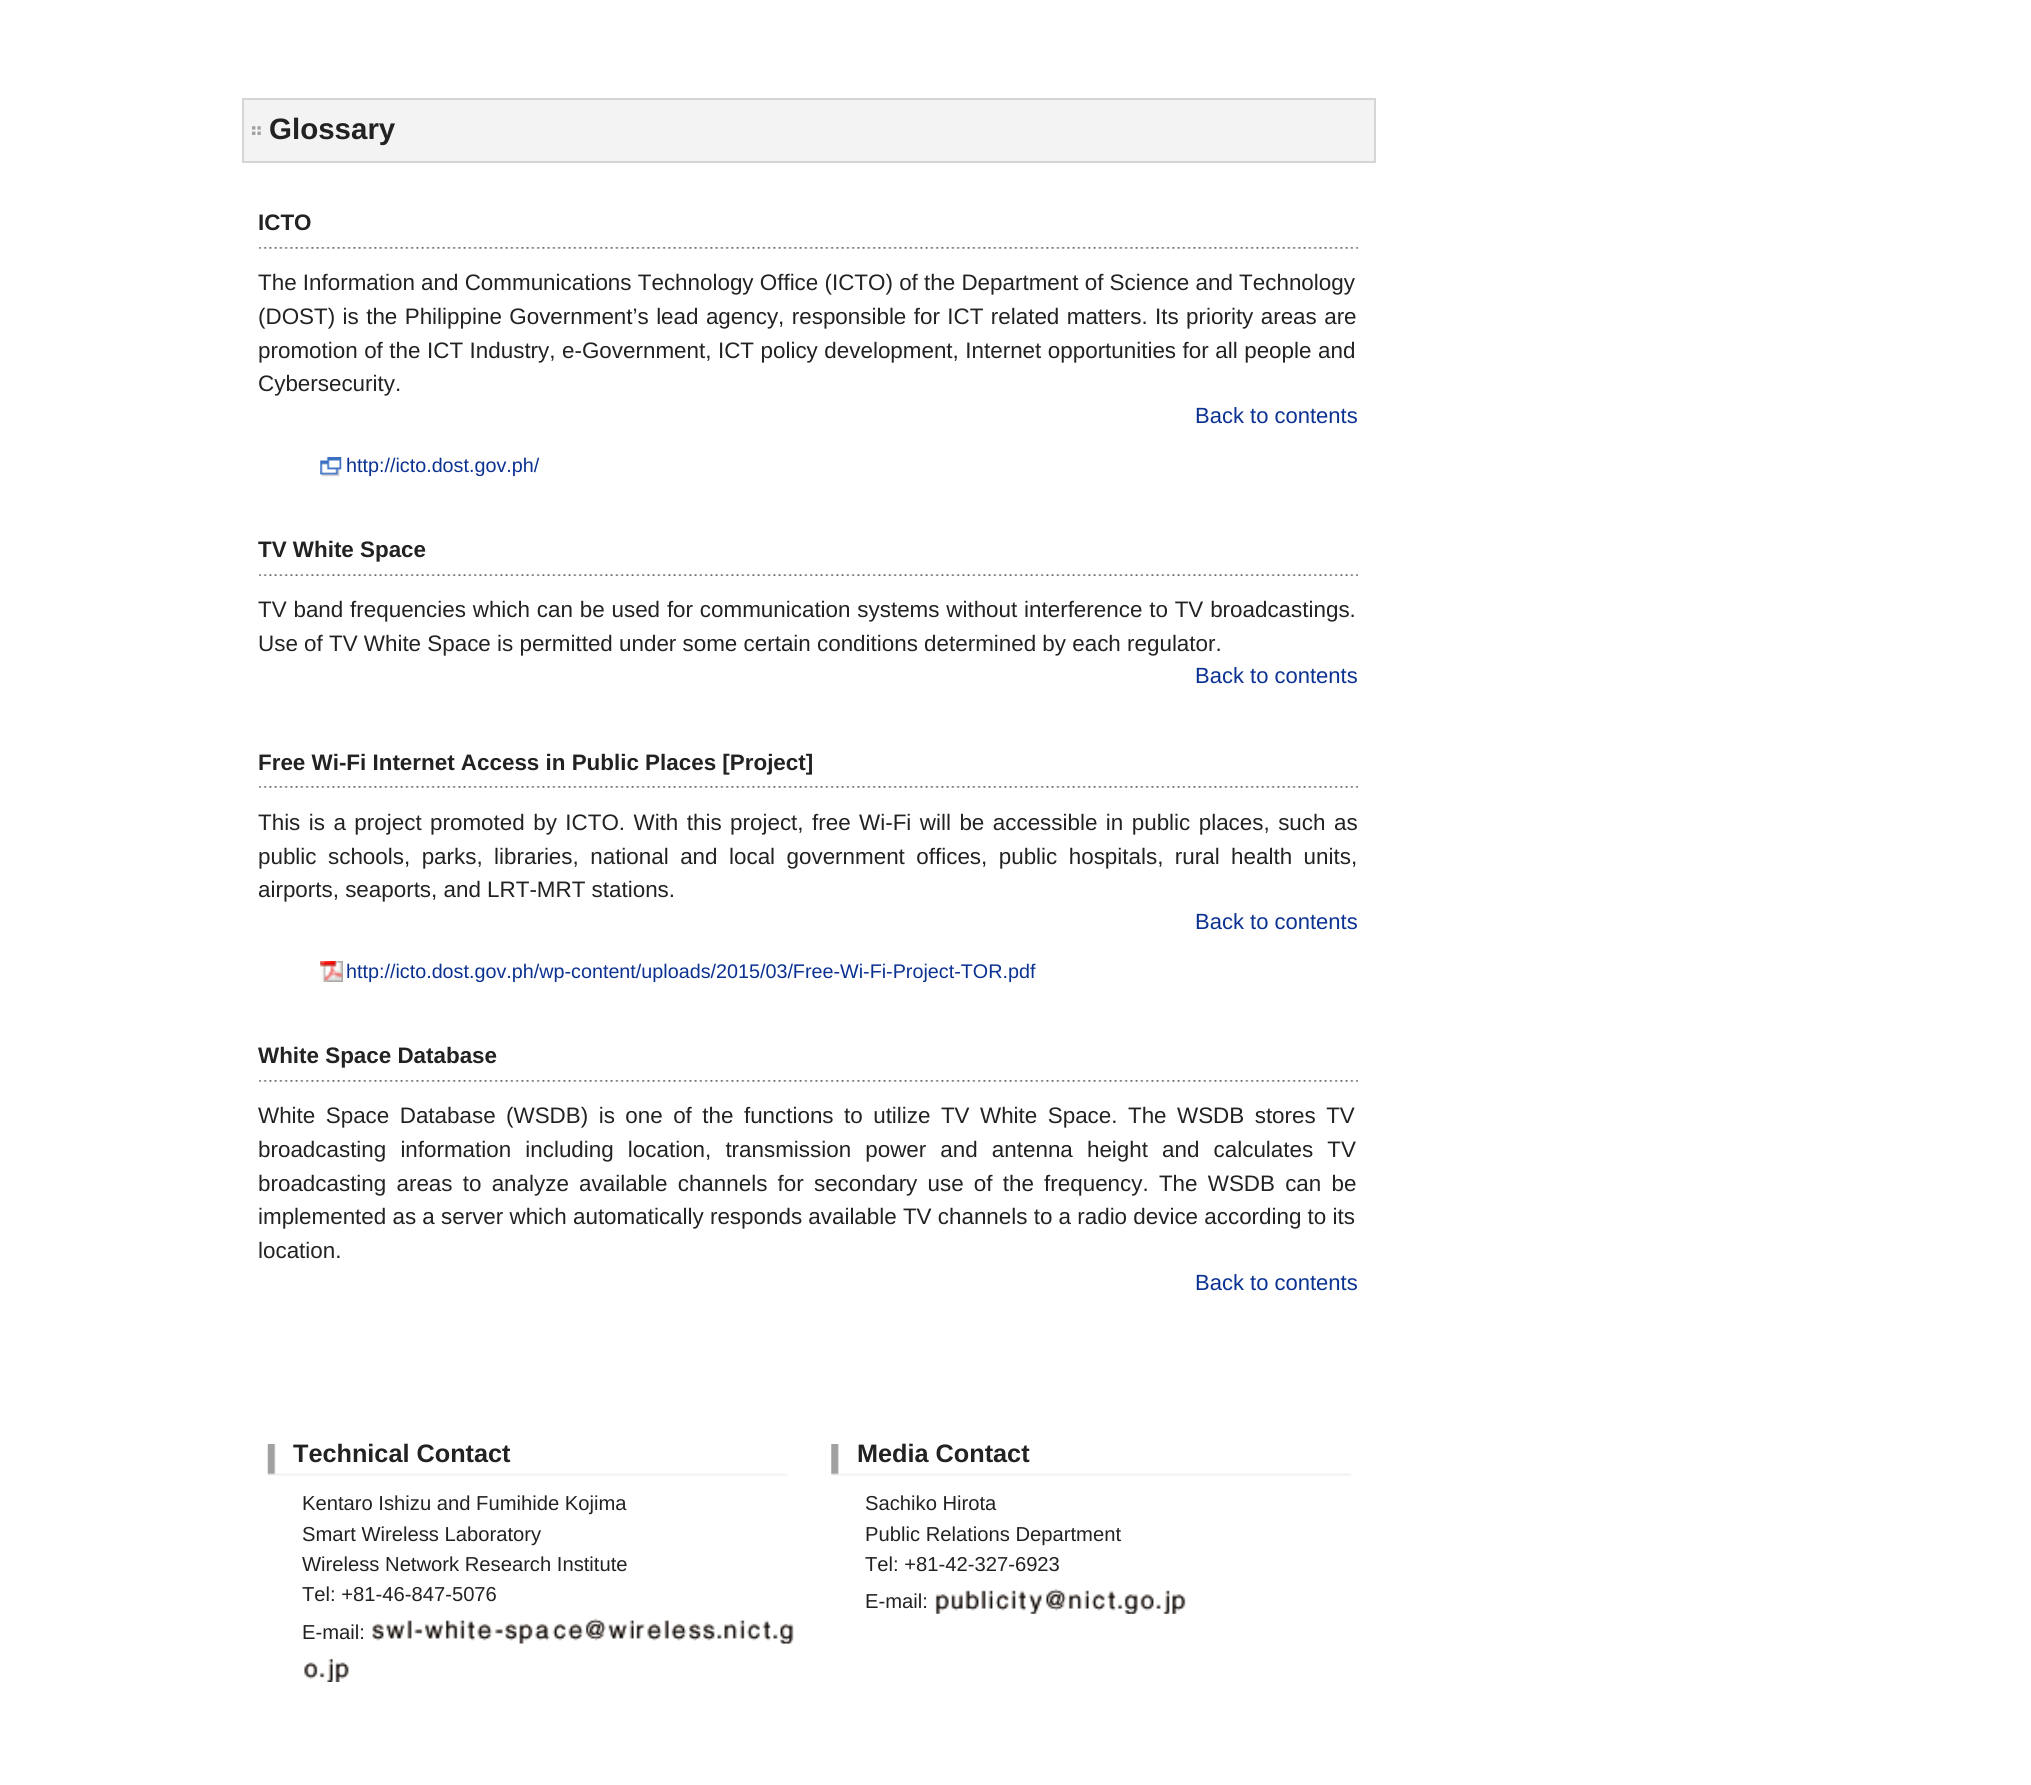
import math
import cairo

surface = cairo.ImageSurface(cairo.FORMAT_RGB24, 2031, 1785)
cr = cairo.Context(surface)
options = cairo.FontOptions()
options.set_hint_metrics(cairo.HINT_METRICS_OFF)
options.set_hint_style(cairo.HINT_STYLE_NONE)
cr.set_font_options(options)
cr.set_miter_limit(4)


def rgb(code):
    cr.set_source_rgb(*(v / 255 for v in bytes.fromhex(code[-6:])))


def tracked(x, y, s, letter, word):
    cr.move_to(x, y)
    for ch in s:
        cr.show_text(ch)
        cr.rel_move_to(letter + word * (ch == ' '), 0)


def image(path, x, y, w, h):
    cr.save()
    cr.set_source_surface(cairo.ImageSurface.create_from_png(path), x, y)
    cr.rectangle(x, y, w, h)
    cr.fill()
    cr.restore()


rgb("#ffffff")
cr.paint()
rgb("#f3f3f3")
cr.rectangle(244, 100, 1130, 61)
cr.fill()
image("img/1.png", 252, 126, 9, 9)
cr.rectangle(243, 99, 1132, 63)
rgb("#d5d5d5")
cr.stroke()
image("img/2.png", 259, 247, 1099, 2)
image("img/3.png", 320, 457, 22, 20)
image("img/4.png", 259, 574, 1099, 2)
image("img/2.png", 259, 786, 1099, 2)
image("img/5.png", 320, 961, 23, 21)
image("img/6.png", 259, 1080, 1099, 2)
image("img/7.png", 267, 1444, 521, 32)
image("img/8.png", 372, 1623, 12, 18)
image("img/9.png", 386, 1623, 19, 16)
image("img/10.png", 407, 1620, 5, 19)
image("img/11.png", 414, 1629, 9, 5)
image("img/12.png", 424, 1623, 20, 16)
image("img/13.png", 445, 1620, 13, 19)
image("img/14.png", 459, 1620, 6, 19)
image("img/15.png", 466, 1620, 9, 21)
image("img/16.png", 477, 1623, 16, 18)
image("img/17.png", 494, 1629, 9, 5)
image("img/18.png", 505, 1623, 12, 18)
image("img/19.png", 519, 1623, 14, 21)
image("img/20.png", 535, 1623, 15, 18)
image("img/21.png", 552, 1623, 14, 18)
image("img/16.png", 568, 1623, 16, 18)
image("img/22.png", 585, 1618, 21, 23)
image("img/23.png", 608, 1623, 19, 16)
image("img/24.png", 629, 1620, 5, 19)
image("img/25.png", 636, 1623, 9, 16)
image("img/26.png", 647, 1623, 15, 18)
image("img/27.png", 664, 1620, 5, 19)
image("img/28.png", 671, 1623, 16, 18)
image("img/29.png", 689, 1623, 12, 18)
image("img/30.png", 703, 1623, 12, 18)
image("img/31.png", 724, 1623, 14, 16)
image("img/14.png", 739, 1620, 6, 19)
image("img/32.png", 746, 1623, 14, 18)
image("img/33.png", 762, 1620, 9, 21)
image("img/34.png", 780, 1623, 14, 21)
image("img/35.png", 717, 1634, 5, 5)
image("img/36.png", 773, 1634, 5, 5)
image("img/37.png", 304, 1662, 14, 17)
image("img/38.png", 319, 1672, 6, 6)
image("img/39.png", 326, 1658, 7, 24)
image("img/40.png", 335, 1662, 14, 20)
image("img/41.png", 831, 1444, 520, 32)
image("img/42.png", 935, 1594, 14, 20)
image("img/43.png", 951, 1594, 12, 17)
image("img/44.png", 965, 1590, 14, 21)
image("img/45.png", 981, 1590, 5, 19)
image("img/46.png", 988, 1590, 5, 19)
image("img/47.png", 995, 1594, 14, 17)
image("img/48.png", 1011, 1590, 5, 19)
image("img/49.png", 1018, 1590, 8, 21)
image("img/50.png", 1028, 1594, 16, 20)
image("img/51.png", 1046, 1588, 21, 23)
image("img/52.png", 1068, 1594, 14, 15)
image("img/53.png", 1084, 1590, 5, 19)
image("img/54.png", 1091, 1594, 14, 17)
image("img/55.png", 1107, 1590, 9, 21)
image("img/56.png", 1117, 1604, 6, 5)
image("img/57.png", 1124, 1594, 14, 20)
image("img/58.png", 1140, 1594, 14, 17)
image("img/59.png", 1156, 1604, 5, 5)
image("img/60.png", 1163, 1590, 7, 24)
image("img/61.png", 1172, 1594, 14, 20)
cr.select_font_face("Liberation Sans", cairo.FONT_SLANT_NORMAL, cairo.FONT_WEIGHT_BOLD)
cr.set_font_size(29.5)
rgb("#222222")
cr.move_to(269, 139)
cr.show_text("Glossary")
cr.set_font_size(22.4)
cr.move_to(258, 230)
cr.show_text("ICTO")
cr.select_font_face("Liberation Sans")
cr.move_to(258, 290)
cr.show_text("The Information and Communications Technology Office (ICTO) of the Department of Science and Technology")
tracked(258, 324, "(DOST) is the Philippine Government’s lead agency, responsible for ICT related matters. Its priority areas are", 0, 1.2)
tracked(258, 358, "promotion of the ICT Industry, e-Government, ICT policy development, Internet opportunities for all people and", 0, 0.3)
cr.move_to(258, 391)
cr.show_text("Cybersecurity.")
cr.set_font_size(22)
rgb("#0b3191")
cr.move_to(1195, 423)
cr.show_text("Back to contents")
cr.set_font_size(19.75)
cr.move_to(346, 472)
cr.show_text("http://icto.dost.gov.ph/")
cr.select_font_face("Liberation Sans", cairo.FONT_SLANT_NORMAL, cairo.FONT_WEIGHT_BOLD)
cr.set_font_size(22.4)
rgb("#222222")
cr.move_to(258, 557)
cr.show_text("TV White Space")
cr.select_font_face("Liberation Sans")
tracked(258, 617, "TV band frequencies which can be used for communication systems without interference to TV broadcastings.", 0, 0.6)
cr.move_to(258, 651)
cr.show_text("Use of TV White Space is permitted under some certain conditions determined by each regulator.")
cr.set_font_size(22)
rgb("#0b3191")
cr.move_to(1195, 683)
cr.show_text("Back to contents")
cr.select_font_face("Liberation Sans", cairo.FONT_SLANT_NORMAL, cairo.FONT_WEIGHT_BOLD)
cr.set_font_size(22.4)
rgb("#222222")
cr.move_to(258, 770)
cr.show_text("Free Wi-Fi Internet Access in Public Places [Project]")
cr.select_font_face("Liberation Sans")
tracked(258, 830, "This is a project promoted by ICTO. With this project, free Wi-Fi will be accessible in public places, such as", 0, 2.25)
tracked(258, 864, "public schools, parks, libraries, national and local government offices, public hospitals, rural health units,", 0, 5.25)
cr.move_to(258, 897)
cr.show_text("airports, seaports, and LRT-MRT stations.")
cr.set_font_size(22)
rgb("#0b3191")
cr.move_to(1195, 929)
cr.show_text("Back to contents")
cr.set_font_size(19.75)
cr.move_to(346, 978)
cr.show_text("http://icto.dost.gov.ph/wp-content/uploads/2015/03/Free-Wi-Fi-Project-TOR.pdf")
cr.select_font_face("Liberation Sans", cairo.FONT_SLANT_NORMAL, cairo.FONT_WEIGHT_BOLD)
cr.set_font_size(22.4)
rgb("#222222")
cr.move_to(258, 1063)
cr.show_text("White Space Database")
cr.select_font_face("Liberation Sans")
tracked(258, 1123, "White Space Database (WSDB) is one of the functions to utilize TV White Space. The WSDB stores TV", 0, 4.25)
tracked(258, 1157, "broadcasting information including location, transmission power and antenna height and calculates TV", 0, 7.9)
tracked(258, 1191, "broadcasting areas to analyze available channels for secondary use of the frequency. The WSDB can be", 0, 4)
cr.move_to(258, 1224)
cr.show_text("implemented as a server which automatically responds available TV channels to a radio device according to its")
cr.move_to(258, 1258)
cr.show_text("location.")
cr.set_font_size(22)
rgb("#0b3191")
cr.move_to(1195, 1290)
cr.show_text("Back to contents")
cr.select_font_face("Liberation Sans", cairo.FONT_SLANT_NORMAL, cairo.FONT_WEIGHT_BOLD)
cr.set_font_size(25.25)
rgb("#222222")
cr.move_to(293, 1462)
cr.show_text("Technical Contact")
cr.select_font_face("Liberation Sans")
cr.set_font_size(20.2)
for x, y, s in [
    (302, 1510, "Kentaro Ishizu and Fumihide Kojima"),
    (302, 1541, "Smart Wireless Laboratory"),
    (302, 1571, "Wireless Network Research Institute"),
    (302, 1601, "Tel: +81-46-847-5076"),
    (302, 1639, "E-mail:"),
]:
    cr.move_to(x, y)
    cr.show_text(s)
cr.select_font_face("Liberation Sans", cairo.FONT_SLANT_NORMAL, cairo.FONT_WEIGHT_BOLD)
cr.set_font_size(25.25)
cr.move_to(857, 1462)
cr.show_text("Media Contact")
cr.select_font_face("Liberation Sans")
cr.set_font_size(20.2)
for x, y, s in [
    (865, 1510, "Sachiko Hirota"),
    (865, 1541, "Public Relations Department"),
    (865, 1571, "Tel: +81-42-327-6923"),
    (865, 1608, "E-mail:"),
]:
    cr.move_to(x, y)
    cr.show_text(s)
surface.write_to_png("page.png")
